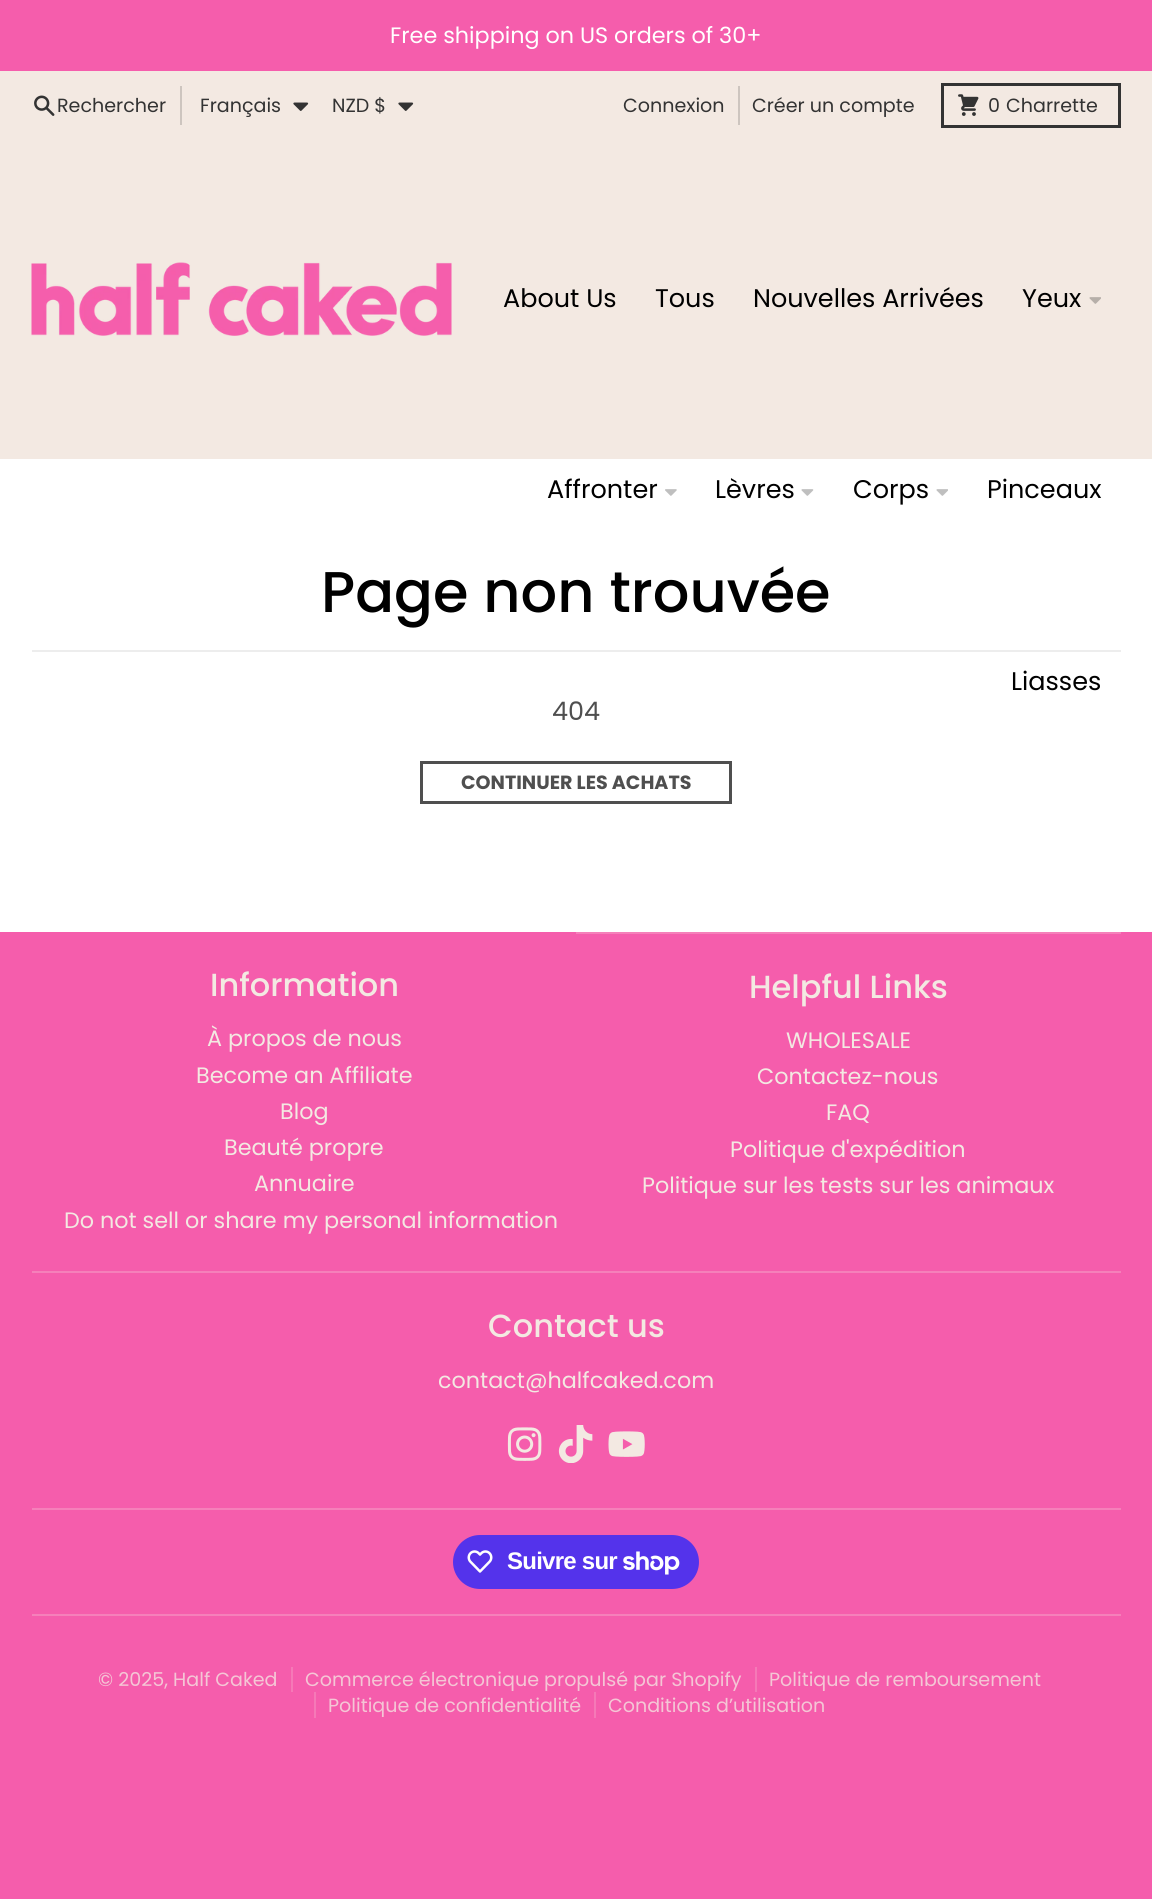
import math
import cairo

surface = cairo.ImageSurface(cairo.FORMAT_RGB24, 1152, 1899)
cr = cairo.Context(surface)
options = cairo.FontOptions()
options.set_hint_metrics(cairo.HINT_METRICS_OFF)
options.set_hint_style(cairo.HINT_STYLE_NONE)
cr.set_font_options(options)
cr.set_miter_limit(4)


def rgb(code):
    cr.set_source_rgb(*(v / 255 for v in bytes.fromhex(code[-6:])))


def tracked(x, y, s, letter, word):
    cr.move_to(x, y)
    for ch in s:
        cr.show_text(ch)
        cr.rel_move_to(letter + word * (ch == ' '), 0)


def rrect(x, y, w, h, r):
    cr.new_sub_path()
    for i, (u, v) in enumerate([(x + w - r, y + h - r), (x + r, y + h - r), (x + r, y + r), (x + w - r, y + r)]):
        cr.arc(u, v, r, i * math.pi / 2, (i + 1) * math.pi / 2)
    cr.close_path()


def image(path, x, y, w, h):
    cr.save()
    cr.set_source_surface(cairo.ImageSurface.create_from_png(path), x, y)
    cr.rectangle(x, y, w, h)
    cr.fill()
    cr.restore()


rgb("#f55dac")
cr.paint()
rgb("#f3e9e2")
cr.rectangle(0, 71, 1152, 388)
cr.fill()
image("img/1.png", 34, 95, 21, 21)
rgb("#cdc5bf")
cr.rectangle(180, 86, 2, 39)
cr.fill()
image("img/2.png", 293, 102, 16, 9)
image("img/2.png", 398, 102, 16, 9)
cr.rectangle(738, 86, 2, 39)
cr.fill()
cr.rectangle(942.5, 84.5, 177, 42)
rgb("#333333")
cr.set_line_width(3)
cr.stroke()
image("img/3.png", 958, 94, 21, 22)
image("img/4.png", 31, 262, 421, 74)
image("img/5.png", 1089, 297, 12, 7)
rgb("#ffffff")
cr.rectangle(0, 459, 1152, 473)
cr.fill()
image("img/6.png", 665, 489, 12, 7)
image("img/7.png", 801, 489, 13, 7)
image("img/8.png", 936, 489, 12, 7)
rgb("#ededed")
cr.rectangle(32, 650, 1089, 2)
cr.fill()
cr.rectangle(421.5, 762.5, 309, 40)
rgb("#4f4f4f")
cr.stroke()
rgb("#f580ba")
cr.rectangle(576, 932, 545, 2)
cr.fill()
cr.rectangle(32, 1271, 1089, 2)
cr.fill()
image("img/9.png", 507, 1427, 35, 34)
image("img/10.png", 558, 1425, 35, 38)
image("img/11.png", 608, 1431, 37, 26)
cr.rectangle(32, 1508, 1089, 2)
cr.fill()
rgb("#5433eb")
rrect(453, 1535, 246, 54, 27)
cr.fill()
image("img/12.png", 467, 1550, 26, 23)
image("img/13.png", 623, 1551, 57, 24)
for x, y, w, h, color in [
    (32, 1614, 1089, 2, "#f580ba"),
    (291, 1667, 2, 25, "#f579b7"),
    (755, 1667, 2, 25, "#f579b7"),
    (314, 1692, 2, 26, "#f579b7"),
    (594, 1692, 2, 26, "#f579b7"),
]:
    rgb(color)
    cr.rectangle(x, y, w, h)
    cr.fill()
cr.select_font_face("Poppins")
cr.set_font_size(22.3)
rgb("#ffffff")
cr.move_to(390, 43)
cr.show_text("Free shipping on US orders of 30+")
cr.set_font_size(19.1)
rgb("#333333")
for x, y, s in [
    (57, 112, "Rechercher"),
    (200, 112, "Français"),
    (332, 112, "NZD $"),
    (623, 112, "Connexion"),
    (752, 112, "Créer un compte"),
    (988, 112, "0"),
    (1006, 112, "Charrette"),
]:
    cr.move_to(x, y)
    cr.show_text(s)
cr.set_font_size(25.5)
rgb("#000000")
for x, y, s in [
    (503, 307, "About Us"),
    (655, 307, "Tous"),
    (753, 307, "Nouvelles Arrivées"),
    (1022, 307, "Yeux"),
    (547, 498, "Affronter"),
    (715, 498, "Lèvres"),
    (853, 498, "Corps"),
    (987, 498, "Pinceaux"),
    (1011, 690, "Liasses"),
]:
    cr.move_to(x, y)
    cr.show_text(s)
cr.select_font_face("Poppins Medium")
cr.set_font_size(57.4)
cr.move_to(321, 612)
cr.show_text("Page non trouvée")
cr.select_font_face("Poppins")
cr.set_font_size(25.5)
rgb("#4f4f4f")
cr.move_to(552, 720)
cr.show_text("404")
cr.select_font_face("Poppins", cairo.FONT_SLANT_NORMAL, cairo.FONT_WEIGHT_BOLD)
cr.set_font_size(19.1)
cr.move_to(461, 789)
cr.show_text("CONTINUER LES ACHATS")
cr.select_font_face("Poppins Medium")
cr.set_font_size(32)
rgb("#f3e9e2")
cr.move_to(210, 996)
cr.show_text("Information")
cr.select_font_face("Poppins")
cr.set_font_size(22.3)
for x, y, s in [
    (207, 1046, "À propos de nous"),
    (196, 1083, "Become an Affiliate"),
    (280, 1119, "Blog"),
    (224, 1155, "Beauté propre"),
    (254, 1191, "Annuaire"),
    (64, 1228, "Do not sell or share my personal information"),
]:
    cr.move_to(x, y)
    cr.show_text(s)
cr.select_font_face("Poppins Medium")
cr.set_font_size(32)
cr.move_to(749, 998)
cr.show_text("Helpful Links")
cr.select_font_face("Poppins")
cr.set_font_size(22.3)
for x, y, s in [
    (786, 1048, "WHOLESALE"),
    (757, 1084, "Contactez-nous"),
    (826, 1120, "FAQ"),
    (730, 1157, "Politique d'expédition"),
    (642, 1193, "Politique sur les tests sur les animaux"),
]:
    cr.move_to(x, y)
    cr.show_text(s)
cr.select_font_face("Poppins Medium")
cr.set_font_size(32)
cr.move_to(488, 1337)
cr.show_text("Contact us")
cr.select_font_face("Poppins")
cr.set_font_size(22.3)
cr.move_to(438, 1388)
cr.show_text("contact@halfcaked.com")
cr.select_font_face("Liberation Sans", cairo.FONT_SLANT_NORMAL, cairo.FONT_WEIGHT_BOLD)
cr.set_font_size(24)
rgb("#ffffff")
tracked(507, 1569, "Suivre sur", -0.75, 0)
cr.select_font_face("Poppins")
cr.set_font_size(19.1)
rgb("#f4c6d5")
for x, y, s in [
    (98, 1686, "© 2025, Half Caked"),
    (305, 1686, "Commerce électronique propulsé par Shopify"),
    (769, 1686, "Politique de remboursement"),
    (328, 1712, "Politique de confidentialité"),
    (608, 1712, "Conditions d’utilisation"),
]:
    cr.move_to(x, y)
    cr.show_text(s)
surface.write_to_png("page.png")
